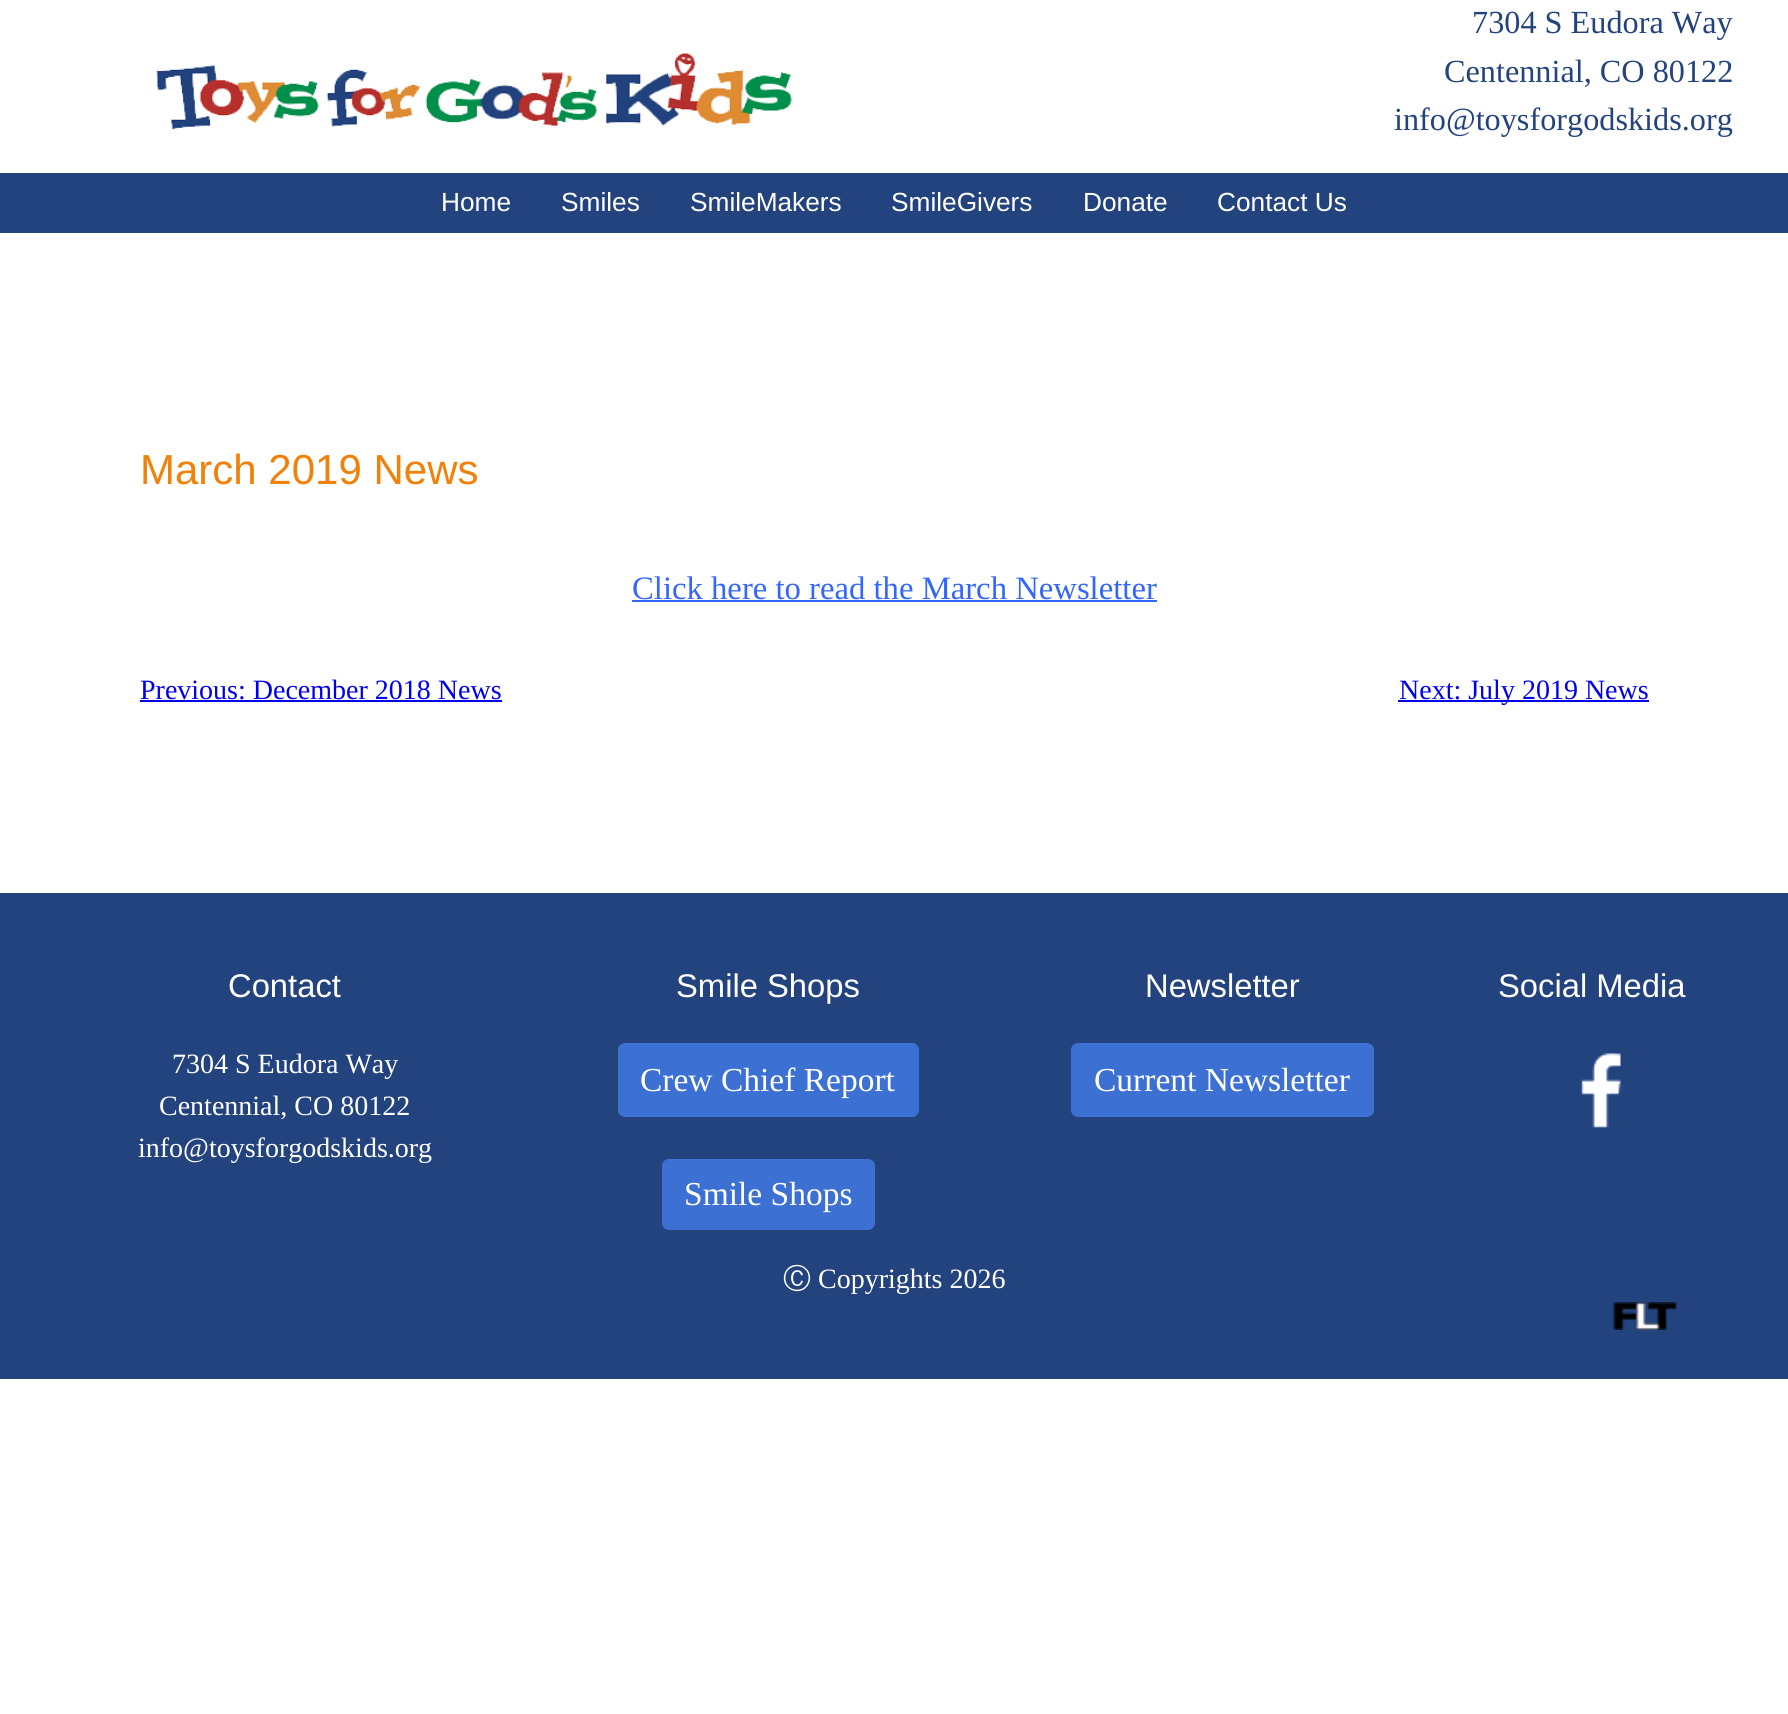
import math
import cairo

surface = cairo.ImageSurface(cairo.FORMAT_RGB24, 1788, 1714)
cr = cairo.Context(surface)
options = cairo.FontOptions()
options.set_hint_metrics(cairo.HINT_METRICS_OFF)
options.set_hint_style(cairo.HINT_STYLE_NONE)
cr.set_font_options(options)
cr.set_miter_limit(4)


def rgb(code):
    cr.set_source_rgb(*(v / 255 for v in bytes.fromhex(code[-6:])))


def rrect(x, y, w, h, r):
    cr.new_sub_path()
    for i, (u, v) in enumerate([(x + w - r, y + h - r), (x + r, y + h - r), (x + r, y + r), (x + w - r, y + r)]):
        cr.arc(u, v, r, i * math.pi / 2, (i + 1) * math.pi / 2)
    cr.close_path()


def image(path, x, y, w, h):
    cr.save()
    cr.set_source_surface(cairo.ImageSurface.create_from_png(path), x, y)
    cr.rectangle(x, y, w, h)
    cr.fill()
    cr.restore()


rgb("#ffffff")
cr.paint()
image("img/1.png", 156, 52, 636, 78)
for x, y, w, h, color in [
    (0, 173, 1788, 60, "#23437e"),
    (632, 600, 525, 2, "#3366ff"),
    (140, 700, 362, 2, "#0000ee"),
    (1398, 700, 251, 2, "#0000ee"),
    (0, 893, 1788, 486, "#23437e"),
]:
    rgb(color)
    cr.rectangle(x, y, w, h)
    cr.fill()
rgb("#3c71d3")
rrect(619, 1044, 299, 72, 6)
cr.fill_preserve()
cr.stroke()
rrect(663, 1160, 211, 69, 6)
cr.fill_preserve()
cr.stroke()
rrect(1072, 1044, 301, 72, 6)
cr.fill_preserve()
cr.stroke()
image("img/2.png", 1581, 1053, 40, 75)
image("img/3.png", 1613, 1302, 64, 28)
cr.select_font_face("Liberation Serif")
cr.set_font_size(32.25)
rgb("#23437e")
for x, y, s in [
    (1472, 33, "7304 S Eudora Way"),
    (1444, 82, "Centennial, CO 80122"),
    (1394, 130, "info@toysforgodskids.org"),
]:
    cr.move_to(x, y)
    cr.show_text(s)
cr.select_font_face("Liberation Sans")
cr.set_font_size(26.25)
rgb("#ffffff")
for x, y, s in [
    (441, 211, "Home"),
    (561, 211, "Smiles"),
    (690, 211, "SmileMakers"),
    (891, 211, "SmileGivers"),
    (1083, 211, "Donate"),
    (1217, 211, "Contact Us"),
]:
    cr.move_to(x, y)
    cr.show_text(s)
cr.set_font_size(42)
rgb("#f08109")
cr.move_to(140, 484)
cr.show_text("March 2019 News")
cr.select_font_face("Liberation Serif")
cr.set_font_size(32.7)
rgb("#3366ff")
cr.move_to(632, 599)
cr.show_text("Click here to read the March Newsletter")
cr.set_font_size(28)
rgb("#0000ee")
cr.move_to(140, 699)
cr.show_text("Previous: December 2018 News")
cr.move_to(1399, 699)
cr.show_text("Next: July 2019 News")
cr.select_font_face("Liberation Sans")
cr.set_font_size(32.75)
rgb("#ffffff")
cr.move_to(228, 997)
cr.show_text("Contact")
cr.select_font_face("Liberation Serif")
cr.set_font_size(28)
for x, y, s in [
    (172, 1073, "7304 S Eudora Way"),
    (159, 1115, "Centennial, CO 80122"),
    (138, 1157, "info@toysforgodskids.org"),
]:
    cr.move_to(x, y)
    cr.show_text(s)
cr.select_font_face("Liberation Sans")
cr.set_font_size(32.75)
cr.move_to(676, 997)
cr.show_text("Smile Shops")
cr.select_font_face("Liberation Serif")
cr.set_font_size(33.5)
cr.move_to(640, 1091)
cr.show_text("Crew Chief Report")
cr.move_to(684, 1205)
cr.show_text("Smile Shops")
cr.select_font_face("Liberation Sans")
cr.set_font_size(32.75)
cr.move_to(1145, 997)
cr.show_text("Newsletter")
cr.select_font_face("Liberation Serif")
cr.set_font_size(33.5)
cr.move_to(1094, 1091)
cr.show_text("Current Newsletter")
cr.select_font_face("Liberation Sans")
cr.set_font_size(32.75)
cr.move_to(1498, 997)
cr.show_text("Social Media")
cr.select_font_face("WenQuanYi Zen Hei Medium")
cr.set_font_size(28)
cr.move_to(783, 1288)
cr.show_text("Ⓒ")
cr.select_font_face("Liberation Serif")
cr.move_to(818, 1288)
cr.show_text("Copyrights 2026")
surface.write_to_png("page.png")
